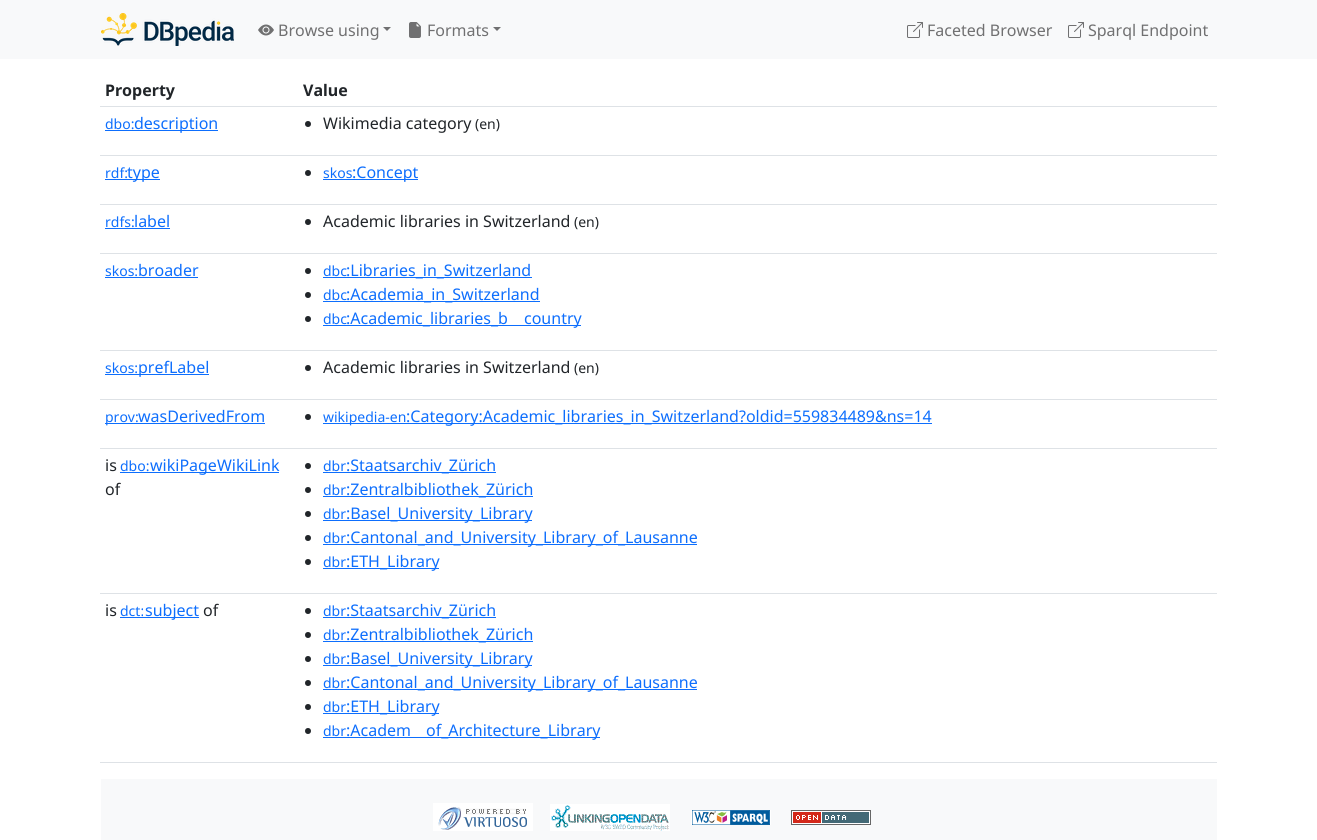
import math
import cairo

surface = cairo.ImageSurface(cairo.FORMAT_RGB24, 1317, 840)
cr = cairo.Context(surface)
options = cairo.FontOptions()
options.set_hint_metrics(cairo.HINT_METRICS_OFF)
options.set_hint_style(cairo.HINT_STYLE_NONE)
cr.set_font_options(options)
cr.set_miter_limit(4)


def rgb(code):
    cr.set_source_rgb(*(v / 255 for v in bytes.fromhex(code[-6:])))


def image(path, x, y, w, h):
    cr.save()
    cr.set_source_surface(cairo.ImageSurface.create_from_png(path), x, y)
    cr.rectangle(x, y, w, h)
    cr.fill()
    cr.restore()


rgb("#ffffff")
cr.paint()
rgb("#f8f9fa")
cr.rectangle(0, 0, 1317, 59)
cr.fill()
image("img/1.png", 101, 13, 133, 33)
image("img/2.png", 258, 24, 16, 12)
rgb("#707071")
cr.new_path()
cr.move_to(383, 27)
cr.line_to(391, 27)
cr.line_to(387, 31)
cr.close_path()
cr.fill()
image("img/3.png", 409, 22, 12, 16)
cr.new_path()
cr.move_to(493, 27)
cr.line_to(501, 27)
cr.line_to(497, 31)
cr.close_path()
cr.fill()
image("img/4.png", 907, 22, 16, 16)
image("img/4.png", 1068, 22, 16, 16)
for x, y, w, h, color in [
    (100, 106, 1117, 1, "#dee2e6"),
    (105, 130, 113, 1, "#0d6efd"),
    (100, 155, 1117, 1, "#dee2e6"),
]:
    rgb(color)
    cr.rectangle(x, y, w, h)
    cr.fill()
rgb("#212529")
cr.arc(308, 124, 3, 0, 2 * math.pi)
cr.fill()
rgb("#0d6efd")
cr.rectangle(105, 179, 55, 1)
cr.fill()
rgb("#dee2e6")
cr.rectangle(100, 204, 1117, 1)
cr.fill()
rgb("#212529")
cr.arc(308, 173, 3, 0, 2 * math.pi)
cr.fill()
for x, y, w, h, color in [
    (323, 179, 95, 1, "#0d6efd"),
    (105, 228, 65, 1, "#0d6efd"),
    (100, 253, 1117, 1, "#dee2e6"),
]:
    rgb(color)
    cr.rectangle(x, y, w, h)
    cr.fill()
rgb("#212529")
cr.arc(308, 222, 3, 0, 2 * math.pi)
cr.fill()
rgb("#0d6efd")
cr.rectangle(105, 277, 93, 1)
cr.fill()
rgb("#dee2e6")
cr.rectangle(100, 350, 1117, 1)
cr.fill()
rgb("#212529")
cr.arc(308, 271, 3, 0, 2 * math.pi)
cr.fill()
rgb("#0d6efd")
cr.rectangle(323, 277, 209, 1)
cr.fill()
rgb("#212529")
cr.arc(308, 295, 3, 0, 2 * math.pi)
cr.fill()
rgb("#0d6efd")
cr.rectangle(323, 301, 217, 1)
cr.fill()
rgb("#212529")
cr.arc(308, 319, 3, 0, 2 * math.pi)
cr.fill()
for x, y, w, h, color in [
    (323, 325, 258, 1, "#0d6efd"),
    (105, 374, 104, 1, "#0d6efd"),
    (100, 399, 1117, 1, "#dee2e6"),
]:
    rgb(color)
    cr.rectangle(x, y, w, h)
    cr.fill()
rgb("#212529")
cr.arc(308, 368, 3, 0, 2 * math.pi)
cr.fill()
rgb("#0d6efd")
cr.rectangle(105, 423, 160, 1)
cr.fill()
rgb("#dee2e6")
cr.rectangle(100, 448, 1117, 1)
cr.fill()
rgb("#212529")
cr.arc(308, 417, 3, 0, 2 * math.pi)
cr.fill()
for x, y, w, h, color in [
    (323, 423, 609, 1, "#0d6efd"),
    (120, 472, 159, 1, "#0d6efd"),
    (100, 593, 1117, 1, "#dee2e6"),
]:
    rgb(color)
    cr.rectangle(x, y, w, h)
    cr.fill()
rgb("#212529")
cr.arc(308, 466, 3, 0, 2 * math.pi)
cr.fill()
rgb("#0d6efd")
cr.rectangle(323, 472, 173, 1)
cr.fill()
rgb("#212529")
cr.arc(308, 490, 3, 0, 2 * math.pi)
cr.fill()
rgb("#0d6efd")
cr.rectangle(323, 496, 210, 1)
cr.fill()
rgb("#212529")
cr.arc(308, 514, 3, 0, 2 * math.pi)
cr.fill()
rgb("#0d6efd")
cr.rectangle(323, 520, 209, 1)
cr.fill()
rgb("#212529")
cr.arc(308, 538, 3, 0, 2 * math.pi)
cr.fill()
rgb("#0d6efd")
cr.rectangle(323, 544, 374, 1)
cr.fill()
rgb("#212529")
cr.arc(308, 562, 3, 0, 2 * math.pi)
cr.fill()
for x, y, w, h, color in [
    (323, 568, 116, 1, "#0d6efd"),
    (120, 617, 79, 1, "#0d6efd"),
    (100, 762, 1117, 1, "#dee2e6"),
]:
    rgb(color)
    cr.rectangle(x, y, w, h)
    cr.fill()
rgb("#212529")
cr.arc(308, 611, 3, 0, 2 * math.pi)
cr.fill()
rgb("#0d6efd")
cr.rectangle(323, 617, 173, 1)
cr.fill()
rgb("#212529")
cr.arc(308, 635, 3, 0, 2 * math.pi)
cr.fill()
rgb("#0d6efd")
cr.rectangle(323, 641, 210, 1)
cr.fill()
rgb("#212529")
cr.arc(308, 659, 3, 0, 2 * math.pi)
cr.fill()
rgb("#0d6efd")
cr.rectangle(323, 665, 209, 1)
cr.fill()
rgb("#212529")
cr.arc(308, 683, 3, 0, 2 * math.pi)
cr.fill()
rgb("#0d6efd")
cr.rectangle(323, 689, 374, 1)
cr.fill()
rgb("#212529")
cr.arc(308, 707, 3, 0, 2 * math.pi)
cr.fill()
rgb("#0d6efd")
cr.rectangle(323, 713, 116, 1)
cr.fill()
rgb("#212529")
cr.arc(308, 731, 3, 0, 2 * math.pi)
cr.fill()
rgb("#0d6efd")
cr.rectangle(323, 737, 277, 1)
cr.fill()
rgb("#f8f9fa")
cr.rectangle(101, 779, 1116, 61)
cr.fill()
image("img/5.png", 433, 803, 100, 28)
image("img/6.png", 550, 804, 120, 27)
image("img/7.png", 691, 810, 80, 15)
image("img/8.png", 791, 810, 80, 15)
cr.select_font_face("Noto Sans")
cr.set_font_size(16)
rgb("#707071")
for x, y, s in [
    (278, 36, "Browse using"),
    (427, 36, "Formats"),
    (927, 36, "Faceted Browser"),
    (1088, 36, "Sparql Endpoint"),
]:
    cr.move_to(x, y)
    cr.show_text(s)
cr.select_font_face("Noto Sans", cairo.FONT_SLANT_NORMAL, cairo.FONT_WEIGHT_BOLD)
rgb("#212529")
cr.move_to(105, 96)
cr.show_text("Property")
cr.move_to(303, 96)
cr.show_text("Value")
cr.select_font_face("Noto Sans")
cr.set_font_size(14)
rgb("#0d6efd")
cr.move_to(105, 129)
cr.show_text("dbo:")
cr.set_font_size(16)
cr.move_to(134, 129)
cr.show_text("description")
rgb("#212529")
cr.move_to(323, 129)
cr.show_text("Wikimedia category")
cr.set_font_size(14)
cr.move_to(475, 129)
cr.show_text("(en)")
rgb("#0d6efd")
cr.move_to(105, 178)
cr.show_text("rdf:")
cr.set_font_size(16)
cr.move_to(127, 178)
cr.show_text("type")
cr.set_font_size(14)
cr.move_to(323, 178)
cr.show_text("skos")
cr.set_font_size(16)
cr.move_to(352, 178)
cr.show_text(":Concept")
cr.set_font_size(14)
cr.move_to(105, 227)
cr.show_text("rdfs:")
cr.set_font_size(16)
cr.move_to(134, 227)
cr.show_text("label")
rgb("#212529")
cr.move_to(323, 227)
cr.show_text("Academic libraries in Switzerland")
cr.set_font_size(14)
cr.move_to(574, 227)
cr.show_text("(en)")
rgb("#0d6efd")
cr.move_to(105, 276)
cr.show_text("skos:")
cr.set_font_size(16)
cr.move_to(138, 276)
cr.show_text("broader")
cr.set_font_size(14)
cr.move_to(323, 276)
cr.show_text("dbc")
cr.set_font_size(16)
cr.move_to(346, 276)
cr.show_text(":Libraries_in_Switzerland")
cr.set_font_size(14)
cr.move_to(323, 300)
cr.show_text("dbc")
cr.set_font_size(16)
cr.move_to(346, 300)
cr.show_text(":Academia_in_Switzerland")
cr.set_font_size(14)
cr.move_to(323, 324)
cr.show_text("dbc")
cr.set_font_size(16)
cr.move_to(346, 324)
cr.show_text(":Academic_libraries_b")
cr.move_to(524, 324)
cr.show_text("country")
cr.set_font_size(14)
cr.move_to(105, 373)
cr.show_text("skos:")
cr.set_font_size(16)
cr.move_to(138, 373)
cr.show_text("prefLabel")
rgb("#212529")
cr.move_to(323, 373)
cr.show_text("Academic libraries in Switzerland")
cr.set_font_size(14)
cr.move_to(574, 373)
cr.show_text("(en)")
rgb("#0d6efd")
cr.move_to(105, 422)
cr.show_text("prov:")
cr.set_font_size(16)
cr.move_to(138, 422)
cr.show_text("wasDerivedFrom")
cr.set_font_size(14)
cr.move_to(323, 422)
cr.show_text("wikipedia-en")
cr.set_font_size(16)
cr.move_to(406, 422)
cr.show_text(":Category:Academic_libraries_in_Switzerland?oldid=559834489&ns=14")
rgb("#212529")
cr.move_to(105, 471)
cr.show_text("is")
cr.set_font_size(14)
rgb("#0d6efd")
cr.move_to(120, 471)
cr.show_text("dbo:")
cr.set_font_size(16)
cr.move_to(150, 471)
cr.show_text("wikiPageWikiLink")
rgb("#212529")
cr.move_to(105, 495)
cr.show_text("of")
cr.set_font_size(14)
rgb("#0d6efd")
cr.move_to(323, 471)
cr.show_text("dbr")
cr.set_font_size(16)
cr.move_to(346, 471)
cr.show_text(":Staatsarchiv_Zürich")
cr.set_font_size(14)
cr.move_to(323, 495)
cr.show_text("dbr")
cr.set_font_size(16)
cr.move_to(346, 495)
cr.show_text(":Zentralbibliothek_Zürich")
cr.set_font_size(14)
cr.move_to(323, 519)
cr.show_text("dbr")
cr.set_font_size(16)
cr.move_to(346, 519)
cr.show_text(":Basel_University_Library")
cr.set_font_size(14)
cr.move_to(323, 543)
cr.show_text("dbr")
cr.set_font_size(16)
cr.move_to(346, 543)
cr.show_text(":Cantonal_and_University_Library_of_Lausanne")
cr.set_font_size(14)
cr.move_to(323, 567)
cr.show_text("dbr")
cr.set_font_size(16)
cr.move_to(346, 567)
cr.show_text(":ETH_Library")
rgb("#212529")
cr.move_to(105, 616)
cr.show_text("is")
cr.set_font_size(14)
rgb("#0d6efd")
cr.move_to(120, 616)
cr.show_text("dct:")
cr.set_font_size(16)
cr.move_to(145, 616)
cr.show_text("subject")
rgb("#212529")
cr.move_to(203, 616)
cr.show_text("of")
cr.set_font_size(14)
rgb("#0d6efd")
cr.move_to(323, 616)
cr.show_text("dbr")
cr.set_font_size(16)
cr.move_to(346, 616)
cr.show_text(":Staatsarchiv_Zürich")
cr.set_font_size(14)
cr.move_to(323, 640)
cr.show_text("dbr")
cr.set_font_size(16)
cr.move_to(346, 640)
cr.show_text(":Zentralbibliothek_Zürich")
cr.set_font_size(14)
cr.move_to(323, 664)
cr.show_text("dbr")
cr.set_font_size(16)
cr.move_to(346, 664)
cr.show_text(":Basel_University_Library")
cr.set_font_size(14)
cr.move_to(323, 688)
cr.show_text("dbr")
cr.set_font_size(16)
cr.move_to(346, 688)
cr.show_text(":Cantonal_and_University_Library_of_Lausanne")
cr.set_font_size(14)
cr.move_to(323, 712)
cr.show_text("dbr")
cr.set_font_size(16)
cr.move_to(346, 712)
cr.show_text(":ETH_Library")
cr.set_font_size(14)
cr.move_to(323, 736)
cr.show_text("dbr")
cr.set_font_size(16)
cr.move_to(346, 736)
cr.show_text(":Academ")
cr.move_to(426, 736)
cr.show_text("of_Architecture_Library")
surface.write_to_png("page.png")
